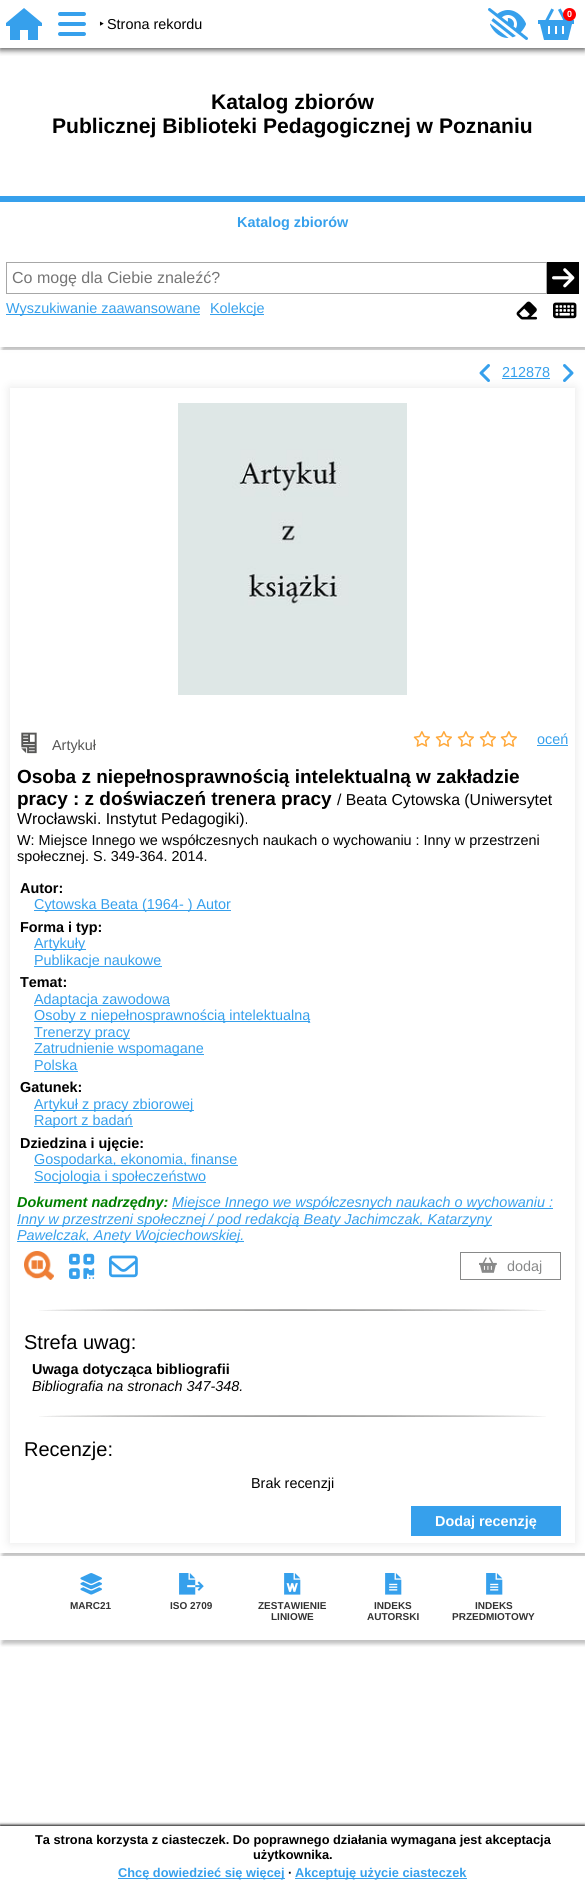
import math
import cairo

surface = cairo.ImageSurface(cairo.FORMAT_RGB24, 585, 1884)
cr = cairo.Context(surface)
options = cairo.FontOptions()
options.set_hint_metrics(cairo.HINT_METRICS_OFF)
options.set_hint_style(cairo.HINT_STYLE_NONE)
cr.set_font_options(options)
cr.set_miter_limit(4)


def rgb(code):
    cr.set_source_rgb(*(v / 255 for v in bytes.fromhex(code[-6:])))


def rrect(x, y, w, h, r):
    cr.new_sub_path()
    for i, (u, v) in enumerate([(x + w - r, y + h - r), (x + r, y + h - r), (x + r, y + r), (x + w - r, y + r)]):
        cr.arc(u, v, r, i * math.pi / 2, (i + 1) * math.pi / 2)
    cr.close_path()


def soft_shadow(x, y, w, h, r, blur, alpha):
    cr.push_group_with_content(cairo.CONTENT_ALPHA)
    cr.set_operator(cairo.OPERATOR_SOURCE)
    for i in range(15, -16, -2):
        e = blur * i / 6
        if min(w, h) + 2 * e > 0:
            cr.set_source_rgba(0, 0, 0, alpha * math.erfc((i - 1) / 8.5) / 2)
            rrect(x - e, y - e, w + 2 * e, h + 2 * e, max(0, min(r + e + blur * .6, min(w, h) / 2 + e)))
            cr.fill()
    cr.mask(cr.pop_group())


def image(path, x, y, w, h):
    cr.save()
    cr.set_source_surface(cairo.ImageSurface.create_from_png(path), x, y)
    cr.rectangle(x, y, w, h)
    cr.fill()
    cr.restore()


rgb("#ffffff")
cr.paint()
cr.save()
cr.rectangle(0, 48, 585, 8)
cr.clip()
rgb("#000000")
soft_shadow(0, 2, 585, 48, 0, 3, 0.65)
cr.restore()
image("img/1.png", 488, 8, 40, 32)
image("img/2.png", 538, 8, 36, 32)
rgb("#ff0000")
cr.arc(569.5, 14.5, 6.5, 0, 2 * math.pi)
cr.fill()
rgb("#36a0ec")
cr.new_path()
cr.move_to(38, 26)
cr.line_to(42, 26)
cr.line_to(42, 23)
cr.line_to(24, 8)
cr.line_to(6, 23)
cr.line_to(6, 26)
cr.line_to(10, 26)
cr.line_to(10, 40)
cr.line_to(20, 40)
cr.line_to(20, 30)
cr.line_to(28, 30)
cr.line_to(28, 40)
cr.line_to(38, 40)
cr.close_path()
cr.fill()
image("img/3.png", 58, 12, 28, 24)
cr.save()
cr.rectangle(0, 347, 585, 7)
cr.clip()
rgb("#000000")
soft_shadow(2, 200, 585, 151, 0, 2, 0.25)
cr.restore()
cr.rectangle(0, 196, 585, 6)
cr.fill()
cr.rectangle(6.5, 262.5, 540, 31)
rgb("#a7a7a7")
cr.set_line_width(1)
cr.stroke()
rgb("#000000")
cr.rectangle(547, 262, 32, 32)
cr.fill()
image("img/4.png", 552, 268, 23, 20)
rgb("#36a0ec")
cr.rectangle(6, 314, 194, 1)
cr.fill()
cr.rectangle(210, 314, 54, 1)
cr.fill()
image("img/5.png", 516, 301, 22, 19)
image("img/6.png", 553, 302, 24, 17)
cr.save()
cr.rectangle(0, 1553, 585, 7)
cr.clip()
rgb("#000000")
soft_shadow(2, 354, 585, 1203, 0, 2, 0.25)
cr.restore()
cr.set_source_rgba(1, 1, 1, 0.95)
cr.rectangle(0, 350, 585, 4)
cr.fill()
cr.save()
cr.set_fill_rule(cairo.FILL_RULE_EVEN_ODD)
cr.new_path()
cr.move_to(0, 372)
cr.line_to(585, 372)
cr.line_to(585, 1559)
cr.line_to(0, 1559)
cr.close_path()
cr.move_to(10, 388)
cr.line_to(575, 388)
cr.line_to(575, 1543)
cr.line_to(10, 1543)
cr.close_path()
cr.clip()
rgb("#000000")
soft_shadow(10, 388, 565, 1155, 0, 5, 0.1)
cr.restore()
image("img/7.png", 479, 364, 11, 18)
rgb("#36a0ec")
cr.rectangle(502, 378, 48, 1)
cr.fill()
image("img/8.png", 563, 364, 11, 18)
image("img/9.png", 178, 403, 229, 292)
image("img/10.png", 21, 732, 16, 22)
image("img/11.png", 413, 731, 17, 16)
image("img/11.png", 435, 731, 17, 16)
image("img/11.png", 457, 731, 17, 16)
image("img/11.png", 479, 731, 17, 16)
image("img/11.png", 500, 731, 17, 16)
for x, y, w, h, color in [
    (537, 745, 31, 1, "#36a0ec"),
    (34, 910, 197, 1, "#36a0ec"),
    (34, 949, 52, 1, "#36a0ec"),
    (34, 966, 128, 1, "#36a0ec"),
    (34, 1005, 136, 1, "#36a0ec"),
    (34, 1021, 276, 1, "#36a0ec"),
    (34, 1038, 96, 1, "#36a0ec"),
    (34, 1054, 170, 1, "#36a0ec"),
    (34, 1071, 44, 1, "#36a0ec"),
    (34, 1110, 160, 1, "#36a0ec"),
    (34, 1126, 99, 1, "#36a0ec"),
    (34, 1165, 204, 1, "#36a0ec"),
    (34, 1182, 172, 1, "#36a0ec"),
    (172, 1208, 381, 1, "#36a0ec"),
    (17, 1225, 475, 1, "#36a0ec"),
    (17, 1241, 227, 1, "#36a0ec"),
]:
    rgb(color)
    cr.rectangle(x, y, w, h)
    cr.fill()
image("img/12.png", 24, 1251, 30, 29)
image("img/13.png", 69, 1253, 26, 26)
image("img/14.png", 109, 1255, 29, 23)
cr.rectangle(460.5, 1252.5, 100, 27)
rgb("#888989")
cr.stroke()
image("img/15.png", 479, 1257, 18, 16)
image("img/16.png", 39, 1309, 507, 2)
image("img/16.png", 39, 1415, 507, 2)
rgb("#36a0ec")
cr.rectangle(411, 1506, 150, 30)
cr.fill()
cr.save()
cr.rectangle(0, 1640, 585, 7)
cr.clip()
rgb("#000000")
soft_shadow(2, 1560, 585, 84, 0, 2, 0.25)
cr.restore()
cr.set_source_rgba(1, 1, 1, 0.95)
cr.rectangle(0, 1556, 585, 4)
cr.fill()
image("img/17.png", 80, 1573, 22, 22)
image("img/18.png", 179, 1573, 25, 22)
image("img/19.png", 284, 1573, 17, 22)
image("img/20.png", 385, 1573, 17, 22)
image("img/20.png", 486, 1573, 17, 22)
rgb("#000000")
soft_shadow(0, 1825, 585, 58, 0, 1.5, 1)
for x, y, w, h, color in [
    (0, 1826, 585, 58, "#ffffff"),
    (118, 1878, 167, 1, "#36a0ec"),
    (295, 1878, 172, 1, "#36a0ec"),
]:
    rgb(color)
    cr.rectangle(x, y, w, h)
    cr.fill()
cr.select_font_face("Liberation Sans", cairo.FONT_SLANT_NORMAL, cairo.FONT_WEIGHT_BOLD)
cr.set_font_size(9)
rgb("#ffffff")
cr.move_to(567, 17)
cr.show_text("0")
cr.select_font_face("Noto Sans")
cr.set_font_size(14.4)
rgb("#000000")
cr.move_to(99, 29)
cr.show_text("‣")
cr.select_font_face("Liberation Sans")
cr.move_to(107, 29)
cr.show_text("Strona rekordu")
cr.select_font_face("Liberation Sans", cairo.FONT_SLANT_NORMAL, cairo.FONT_WEIGHT_BOLD)
cr.set_font_size(21.1)
cr.move_to(211, 109)
cr.show_text("Katalog zbiorów")
cr.move_to(52, 133)
cr.show_text("Publicznej Biblioteki Pedagogicznej w Poznaniu")
cr.set_font_size(14.4)
rgb("#36a0ec")
cr.move_to(237, 227)
cr.show_text("Katalog zbiorów")
cr.select_font_face("Liberation Sans")
cr.set_font_size(16)
rgb("#757575")
cr.move_to(12, 283)
cr.show_text("Co mogę dla Ciebie znaleźć?")
cr.set_font_size(14.4)
rgb("#36a0ec")
for x, y, s in [
    (6, 313, "Wyszukiwanie zaawansowane"),
    (210, 313, "Kolekcje"),
    (502, 377, "212878"),
]:
    cr.move_to(x, y)
    cr.show_text(s)
rgb("#575756")
cr.move_to(52, 750)
cr.show_text("Artykuł")
rgb("#36a0ec")
cr.move_to(537, 744)
cr.show_text("oceń")
cr.select_font_face("Liberation Sans", cairo.FONT_SLANT_NORMAL, cairo.FONT_WEIGHT_BOLD)
cr.set_font_size(19)
rgb("#000000")
cr.move_to(17, 783)
cr.show_text("Osoba z niepełnosprawnością intelektualną w zakładzie")
cr.move_to(17, 805)
cr.show_text("pracy : z doświaczeń trenera pracy")
cr.select_font_face("Liberation Sans")
cr.set_font_size(15.8)
cr.move_to(337, 805)
cr.show_text("/ Beata Cytowska (Uniwersytet")
cr.move_to(17, 824)
cr.show_text("Wrocławski. Instytut Pedagogiki).")
cr.set_font_size(14.4)
cr.move_to(17, 845)
cr.show_text("W: Miejsce Innego we współczesnych naukach o wychowaniu : Inny w przestrzeni")
cr.move_to(17, 861)
cr.show_text("społecznej. S. 349-364. 2014.")
cr.select_font_face("Liberation Sans", cairo.FONT_SLANT_NORMAL, cairo.FONT_WEIGHT_BOLD)
cr.move_to(20, 893)
cr.show_text("Autor:")
cr.select_font_face("Liberation Sans")
rgb("#36a0ec")
cr.move_to(34, 909)
cr.show_text("Cytowska Beata (1964- ) Autor")
cr.select_font_face("Liberation Sans", cairo.FONT_SLANT_NORMAL, cairo.FONT_WEIGHT_BOLD)
rgb("#000000")
cr.move_to(20, 932)
cr.show_text("Forma i typ:")
cr.select_font_face("Liberation Sans")
rgb("#36a0ec")
cr.move_to(34, 948)
cr.show_text("Artykuły")
cr.move_to(34, 965)
cr.show_text("Publikacje naukowe")
cr.select_font_face("Liberation Sans", cairo.FONT_SLANT_NORMAL, cairo.FONT_WEIGHT_BOLD)
rgb("#000000")
cr.move_to(20, 987)
cr.show_text("Temat:")
cr.select_font_face("Liberation Sans")
rgb("#36a0ec")
for x, y, s in [
    (34, 1004, "Adaptacja zawodowa"),
    (34, 1020, "Osoby z niepełnosprawnością intelektualną"),
    (34, 1037, "Trenerzy pracy"),
    (34, 1053, "Zatrudnienie wspomagane"),
    (34, 1070, "Polska"),
]:
    cr.move_to(x, y)
    cr.show_text(s)
cr.select_font_face("Liberation Sans", cairo.FONT_SLANT_NORMAL, cairo.FONT_WEIGHT_BOLD)
rgb("#000000")
cr.move_to(20, 1092)
cr.show_text("Gatunek:")
cr.select_font_face("Liberation Sans")
rgb("#36a0ec")
cr.move_to(34, 1109)
cr.show_text("Artykuł z pracy zbiorowej")
cr.move_to(34, 1125)
cr.show_text("Raport z badań")
cr.select_font_face("Liberation Sans", cairo.FONT_SLANT_NORMAL, cairo.FONT_WEIGHT_BOLD)
rgb("#000000")
cr.move_to(20, 1148)
cr.show_text("Dziedzina i ujęcie:")
cr.select_font_face("Liberation Sans")
rgb("#36a0ec")
cr.move_to(34, 1164)
cr.show_text("Gospodarka, ekonomia, finanse")
cr.move_to(34, 1181)
cr.show_text("Socjologia i społeczeństwo")
cr.select_font_face("Liberation Sans", cairo.FONT_SLANT_ITALIC, cairo.FONT_WEIGHT_BOLD)
rgb("#008000")
cr.move_to(17, 1207)
cr.show_text("Dokument nadrzędny:")
cr.select_font_face("Liberation Sans", cairo.FONT_SLANT_ITALIC)
rgb("#36a0ec")
for x, y, s in [
    (172, 1207, "Miejsce Innego we współczesnych naukach o wychowaniu :"),
    (17, 1224, "Inny w przestrzeni społecznej / pod redakcją Beaty Jachimczak, Katarzyny"),
    (17, 1240, "Pawelczak, Anety Wojciechowskiej."),
]:
    cr.move_to(x, y)
    cr.show_text(s)
cr.select_font_face("Liberation Sans")
rgb("#888989")
cr.move_to(507, 1271)
cr.show_text("dodaj")
cr.set_font_size(20)
rgb("#000000")
cr.move_to(24, 1349)
cr.show_text("Strefa uwag:")
cr.select_font_face("Liberation Sans", cairo.FONT_SLANT_NORMAL, cairo.FONT_WEIGHT_BOLD)
cr.set_font_size(14.4)
cr.move_to(32, 1374)
cr.show_text("Uwaga dotycząca bibliografii")
cr.select_font_face("Liberation Sans", cairo.FONT_SLANT_ITALIC)
cr.move_to(32, 1391)
cr.show_text("Bibliografia na stronach 347-348.")
cr.select_font_face("Liberation Sans")
cr.set_font_size(20)
cr.move_to(24, 1456)
cr.show_text("Recenzje:")
cr.set_font_size(14.4)
cr.move_to(251, 1488)
cr.show_text("Brak recenzji")
cr.select_font_face("Liberation Sans", cairo.FONT_SLANT_NORMAL, cairo.FONT_WEIGHT_BOLD)
rgb("#ffffff")
cr.move_to(435, 1526)
cr.show_text("Dodaj recenzję")
cr.set_font_size(10)
rgb("#333333")
for x, y, s in [
    (70, 1609, "MARC21"),
    (170, 1609, "ISO 2709"),
    (258, 1609, "ZESTAWIENIE"),
    (271, 1620, "LINIOWE"),
    (374, 1609, "INDEKS"),
    (367, 1620, "AUTORSKI"),
    (475, 1609, "INDEKS"),
    (452, 1620, "PRZEDMIOTOWY"),
]:
    cr.move_to(x, y)
    cr.show_text(s)
cr.set_font_size(12.8)
rgb("#000000")
cr.move_to(35, 1844)
cr.show_text("Ta strona korzysta z ciasteczek. Do poprawnego działania wymagana jest akceptacja")
cr.move_to(253, 1859)
cr.show_text("użytkownika.")
rgb("#36a0ec")
cr.move_to(118, 1877)
cr.show_text("Chcę dowiedzieć się więcej")
rgb("#000000")
cr.move_to(288, 1877)
cr.show_text("∙")
rgb("#36a0ec")
cr.move_to(295, 1877)
cr.show_text("Akceptuję użycie ciasteczek")
surface.write_to_png("page.png")
